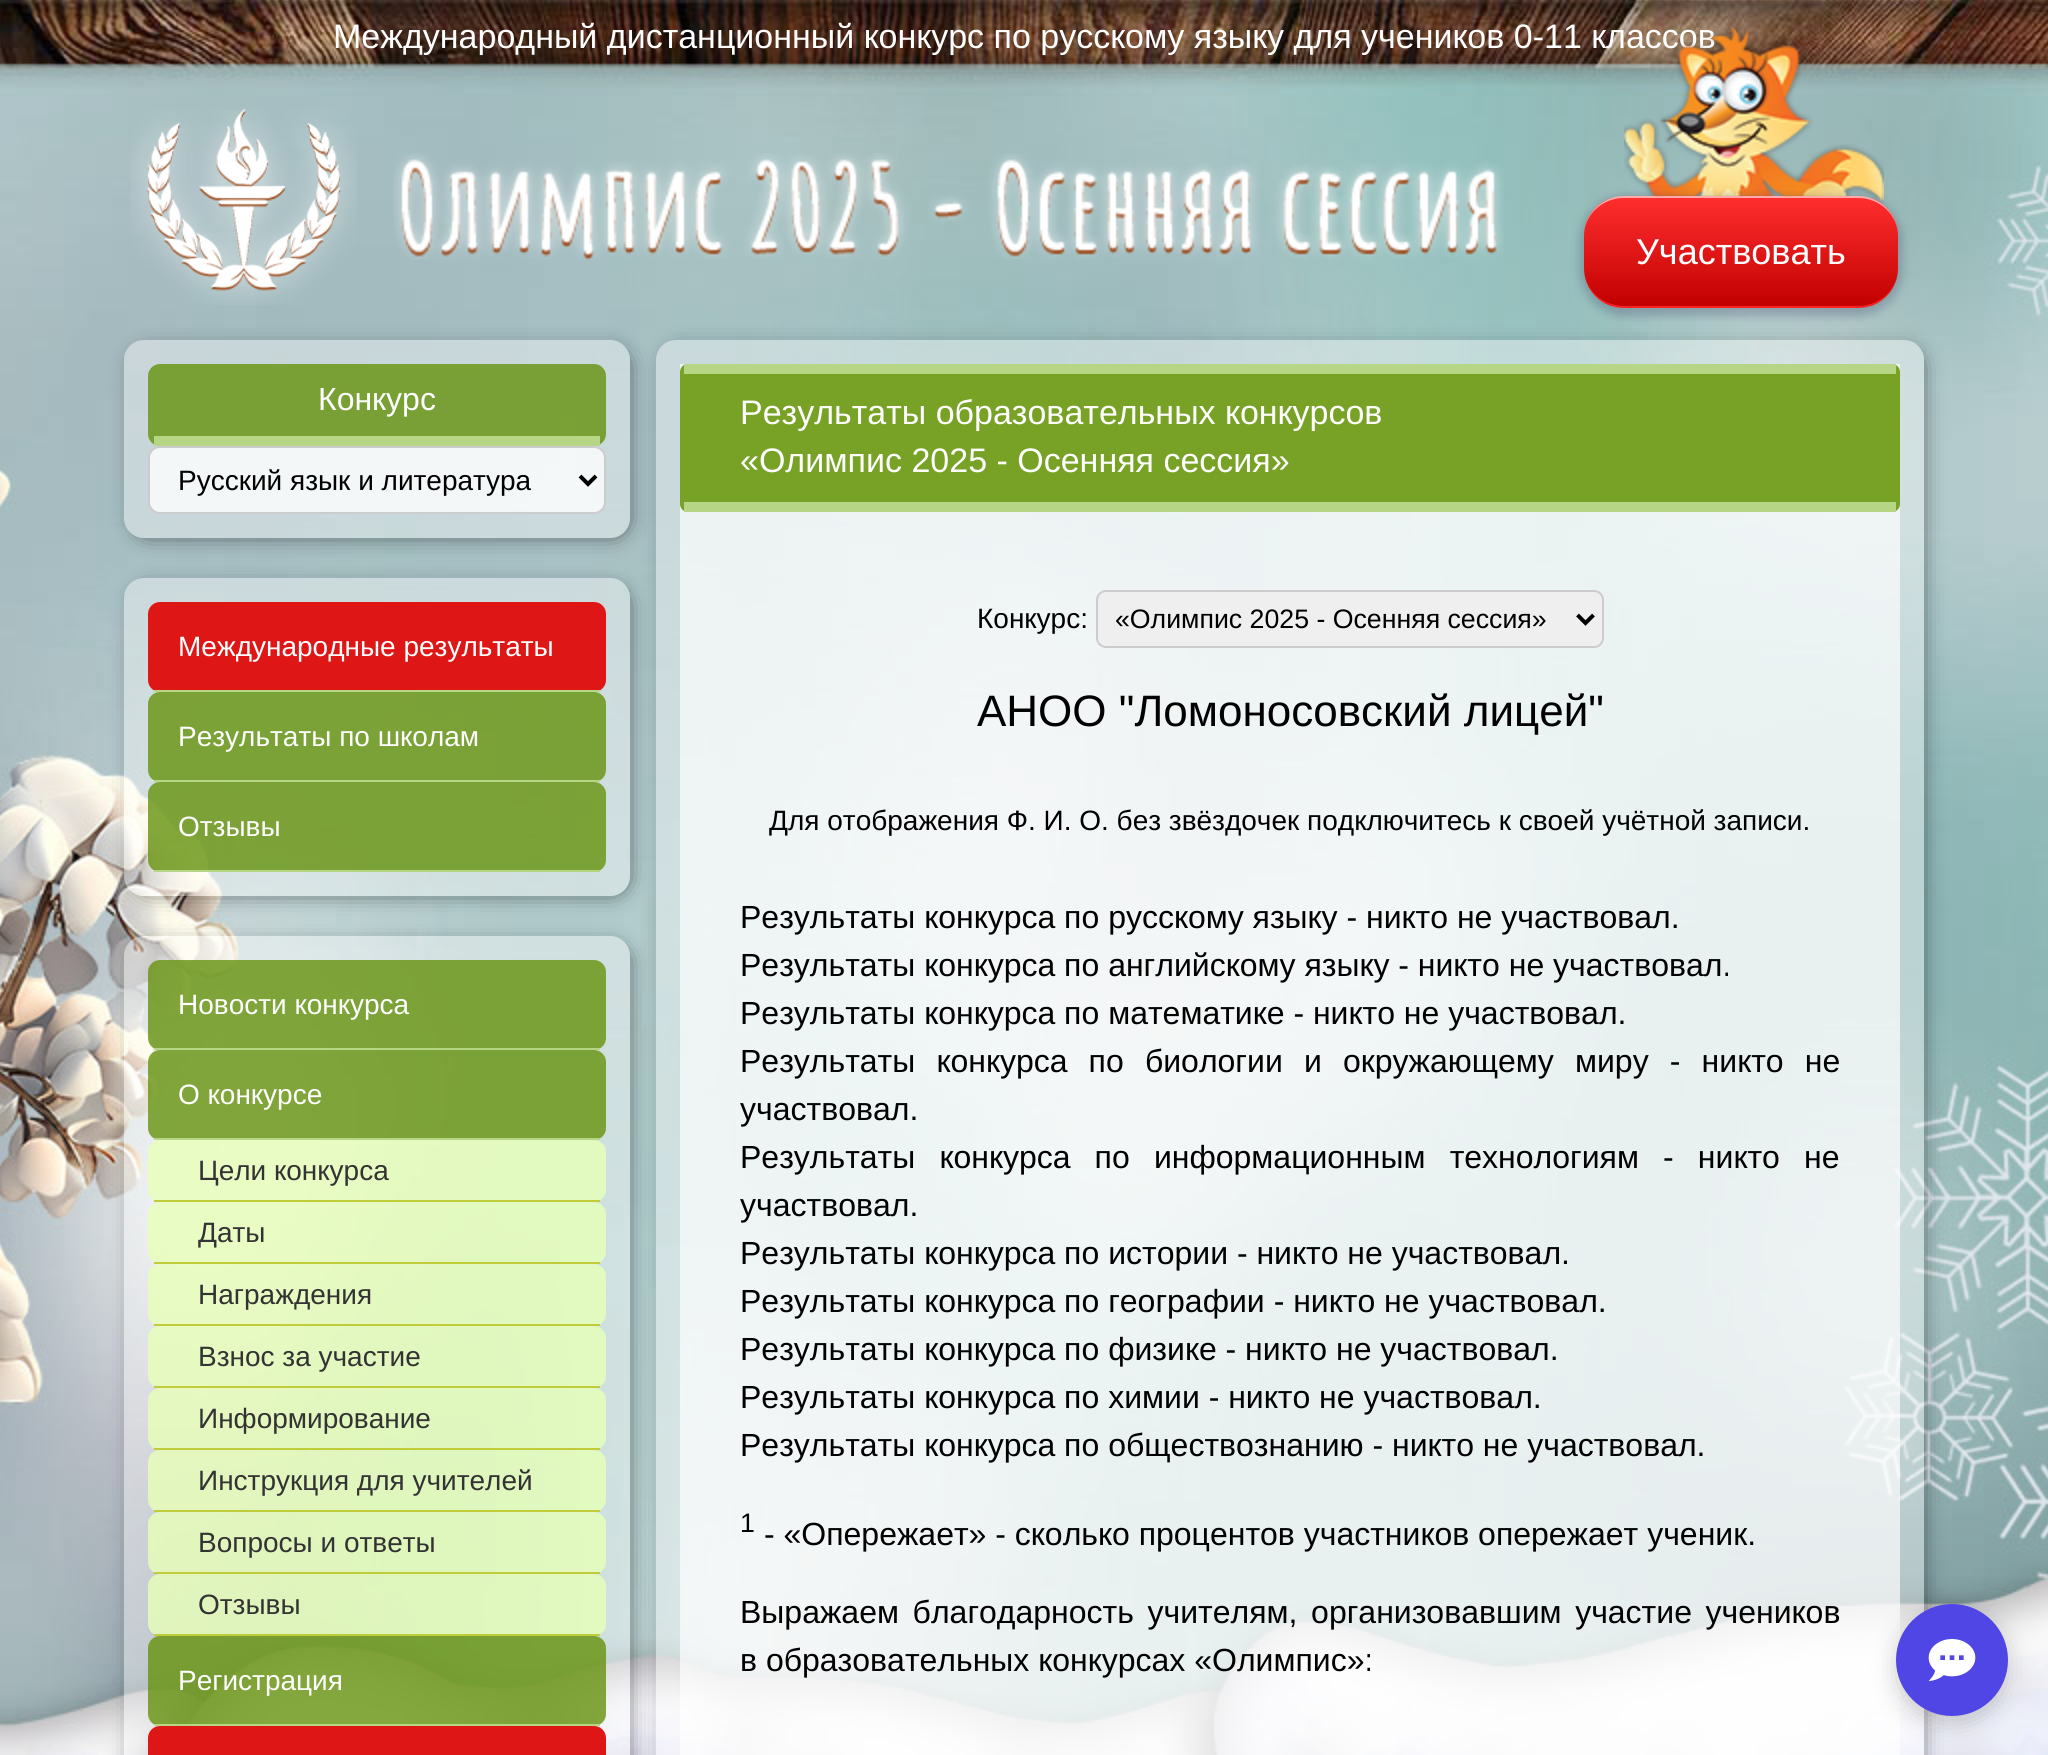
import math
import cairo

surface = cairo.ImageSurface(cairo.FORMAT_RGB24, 2048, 1755)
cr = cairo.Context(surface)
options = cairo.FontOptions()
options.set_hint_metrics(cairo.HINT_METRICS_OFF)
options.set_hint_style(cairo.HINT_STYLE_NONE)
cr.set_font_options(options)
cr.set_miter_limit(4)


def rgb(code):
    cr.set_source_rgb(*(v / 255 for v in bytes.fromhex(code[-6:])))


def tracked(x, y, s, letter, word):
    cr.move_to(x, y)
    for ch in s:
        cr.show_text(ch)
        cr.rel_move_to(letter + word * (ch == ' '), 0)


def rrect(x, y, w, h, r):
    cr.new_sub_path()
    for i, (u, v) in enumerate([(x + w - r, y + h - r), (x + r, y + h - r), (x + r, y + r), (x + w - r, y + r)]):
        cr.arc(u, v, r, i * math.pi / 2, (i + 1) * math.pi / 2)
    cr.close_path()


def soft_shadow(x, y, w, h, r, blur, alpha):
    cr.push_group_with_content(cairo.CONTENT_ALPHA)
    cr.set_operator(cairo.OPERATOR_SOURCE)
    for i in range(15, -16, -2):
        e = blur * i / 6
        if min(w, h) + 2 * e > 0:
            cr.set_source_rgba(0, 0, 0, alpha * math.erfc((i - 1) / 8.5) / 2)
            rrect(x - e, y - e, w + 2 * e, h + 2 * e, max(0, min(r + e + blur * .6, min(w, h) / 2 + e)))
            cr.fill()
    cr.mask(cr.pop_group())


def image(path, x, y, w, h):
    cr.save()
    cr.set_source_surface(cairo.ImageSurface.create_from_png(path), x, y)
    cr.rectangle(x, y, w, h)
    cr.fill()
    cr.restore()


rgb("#ffffff")
cr.paint()
image("img/1.png", 0, 0, 2048, 1755)
image("img/2.png", 130, 109, 227, 196)
image("img/3.png", 393, 153, 1111, 107)
cr.save()
cr.set_fill_rule(cairo.FILL_RULE_EVEN_ODD)
cr.new_path()
cr.move_to(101, 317)
cr.line_to(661, 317)
cr.line_to(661, 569)
cr.line_to(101, 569)
cr.close_path()
cr.move_to(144, 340)
cr.line_to(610, 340)
cr.curve_to(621, 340, 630, 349, 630, 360)
cr.line_to(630, 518)
cr.curve_to(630, 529, 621, 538, 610, 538)
cr.line_to(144, 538)
cr.curve_to(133, 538, 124, 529, 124, 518)
cr.line_to(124, 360)
cr.curve_to(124, 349, 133, 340, 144, 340)
cr.close_path()
cr.clip()
rgb("#000000")
soft_shadow(138, 354, 486, 178, 10, 12, 0.75)
cr.restore()
cr.set_source_rgba(1, 1, 1, 0.4)
cr.rectangle(148, 364, 458, 150)
cr.fill()
rrect(136, 352, 482, 174, 8)
cr.set_line_width(24)
cr.stroke()
cr.set_source_rgba(0.396, 0.576, 0.051, 0.8)
rrect(148, 364, 458, 82, 12)
cr.fill()
rgb("#b6d585")
cr.rectangle(154, 436, 446, 10)
cr.fill()
cr.set_source_rgba(1, 1, 1, 0.8)
rrect(149, 447, 456, 66, 11)
cr.fill_preserve()
rgb("#cccccc")
cr.set_line_width(2)
cr.stroke()
cr.new_path()
cr.move_to(580, 476)
cr.line_to(588, 484)
cr.line_to(596, 476)
rgb("#000000")
cr.set_line_width(4)
cr.stroke()
cr.save()
cr.set_fill_rule(cairo.FILL_RULE_EVEN_ODD)
cr.new_path()
cr.move_to(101, 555)
cr.line_to(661, 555)
cr.line_to(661, 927)
cr.line_to(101, 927)
cr.close_path()
cr.move_to(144, 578)
cr.line_to(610, 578)
cr.curve_to(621, 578, 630, 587, 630, 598)
cr.line_to(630, 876)
cr.curve_to(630, 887, 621, 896, 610, 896)
cr.line_to(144, 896)
cr.curve_to(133, 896, 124, 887, 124, 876)
cr.line_to(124, 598)
cr.curve_to(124, 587, 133, 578, 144, 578)
cr.close_path()
cr.clip()
rgb("#000000")
soft_shadow(138, 592, 486, 298, 10, 12, 0.75)
cr.restore()
cr.set_source_rgba(1, 1, 1, 0.4)
cr.rectangle(148, 602, 458, 270)
cr.fill()
rrect(136, 590, 482, 294, 8)
cr.set_line_width(24)
cr.stroke()
rgb("#df1616")
rrect(148, 602, 458, 90, 12)
cr.fill()
rgb("#b6d585")
cr.rectangle(154, 690, 446, 2)
cr.fill()
cr.set_source_rgba(0.396, 0.576, 0.051, 0.8)
rrect(148, 692, 458, 90, 12)
cr.fill()
rgb("#b6d585")
cr.rectangle(154, 780, 446, 2)
cr.fill()
cr.set_source_rgba(0.396, 0.576, 0.051, 0.8)
rrect(148, 782, 458, 90, 12)
cr.fill()
rgb("#b6d585")
cr.rectangle(154, 870, 446, 2)
cr.fill()
cr.save()
cr.set_fill_rule(cairo.FILL_RULE_EVEN_ODD)
cr.new_path()
cr.move_to(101, 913)
cr.line_to(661, 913)
cr.line_to(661, 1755)
cr.line_to(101, 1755)
cr.close_path()
cr.move_to(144, 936)
cr.line_to(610, 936)
cr.curve_to(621, 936, 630, 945, 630, 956)
cr.line_to(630, 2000)
cr.curve_to(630, 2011, 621, 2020, 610, 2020)
cr.line_to(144, 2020)
cr.curve_to(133, 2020, 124, 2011, 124, 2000)
cr.line_to(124, 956)
cr.curve_to(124, 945, 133, 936, 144, 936)
cr.close_path()
cr.clip()
rgb("#000000")
soft_shadow(138, 950, 486, 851, 10, 12, 0.75)
cr.restore()
cr.set_source_rgba(1, 1, 1, 0.4)
cr.rectangle(148, 960, 458, 778)
cr.fill()
rrect(136, 948, 482, 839, 8)
cr.stroke()
cr.set_source_rgba(0.396, 0.576, 0.051, 0.8)
rrect(148, 960, 458, 90, 12)
cr.fill()
rgb("#b6d585")
cr.rectangle(154, 1048, 446, 2)
cr.fill()
cr.set_source_rgba(0.396, 0.576, 0.051, 0.8)
rrect(148, 1050, 458, 90, 12)
cr.fill()
rgb("#b6d585")
cr.rectangle(154, 1138, 446, 2)
cr.fill()
cr.set_source_rgba(0.906, 1, 0.722, 0.8)
rrect(148, 1140, 458, 62, 12)
cr.fill()
rgb("#c0cd38")
cr.rectangle(154, 1200, 446, 2)
cr.fill()
cr.set_source_rgba(0.906, 1, 0.722, 0.8)
rrect(148, 1202, 458, 62, 12)
cr.fill()
rgb("#c0cd38")
cr.rectangle(154, 1262, 446, 2)
cr.fill()
cr.set_source_rgba(0.906, 1, 0.722, 0.8)
rrect(148, 1264, 458, 62, 12)
cr.fill()
rgb("#c0cd38")
cr.rectangle(154, 1324, 446, 2)
cr.fill()
cr.set_source_rgba(0.906, 1, 0.722, 0.8)
rrect(148, 1326, 458, 62, 12)
cr.fill()
rgb("#c0cd38")
cr.rectangle(154, 1386, 446, 2)
cr.fill()
cr.set_source_rgba(0.906, 1, 0.722, 0.8)
rrect(148, 1388, 458, 62, 12)
cr.fill()
rgb("#c0cd38")
cr.rectangle(154, 1448, 446, 2)
cr.fill()
cr.set_source_rgba(0.906, 1, 0.722, 0.8)
rrect(148, 1450, 458, 62, 12)
cr.fill()
rgb("#c0cd38")
cr.rectangle(154, 1510, 446, 2)
cr.fill()
cr.set_source_rgba(0.906, 1, 0.722, 0.8)
rrect(148, 1512, 458, 62, 12)
cr.fill()
rgb("#c0cd38")
cr.rectangle(154, 1572, 446, 2)
cr.fill()
cr.set_source_rgba(0.906, 1, 0.722, 0.8)
rrect(148, 1574, 458, 62, 12)
cr.fill()
rgb("#c0cd38")
cr.rectangle(154, 1634, 446, 2)
cr.fill()
cr.set_source_rgba(0.396, 0.576, 0.051, 0.8)
rrect(148, 1636, 458, 90, 12)
cr.fill()
rgb("#b6d585")
cr.rectangle(154, 1724, 446, 2)
cr.fill()
rgb("#df1616")
rrect(148, 1726, 458, 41, 12)
cr.fill()
cr.save()
cr.set_fill_rule(cairo.FILL_RULE_EVEN_ODD)
cr.new_path()
cr.move_to(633, 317)
cr.line_to(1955, 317)
cr.line_to(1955, 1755)
cr.line_to(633, 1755)
cr.close_path()
cr.move_to(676, 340)
cr.line_to(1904, 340)
cr.curve_to(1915, 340, 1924, 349, 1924, 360)
cr.line_to(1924, 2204)
cr.curve_to(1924, 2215, 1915, 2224, 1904, 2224)
cr.line_to(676, 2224)
cr.curve_to(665, 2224, 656, 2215, 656, 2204)
cr.line_to(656, 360)
cr.curve_to(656, 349, 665, 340, 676, 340)
cr.close_path()
cr.clip()
rgb("#000000")
soft_shadow(670, 354, 1248, 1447, 10, 12, 0.75)
cr.restore()
cr.set_source_rgba(1, 1, 1, 0.8)
cr.rectangle(680, 364, 1220, 1391)
cr.fill()
rrect(668, 352, 1244, 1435, 8)
cr.set_source_rgba(1, 1, 1, 0.4)
cr.stroke()
rgb("#77a226")
rrect(680, 364, 1220, 148, 8)
cr.fill()
rgb("#b6d585")
cr.rectangle(684, 364, 1212, 10)
cr.fill()
cr.rectangle(684, 502, 1212, 10)
cr.fill()
rgb("#efefef")
rrect(1097, 591, 506, 56, 9)
cr.fill_preserve()
rgb("#cccccc")
cr.set_line_width(2)
cr.stroke()
cr.new_path()
cr.move_to(1577.5, 615)
cr.line_to(1585.5, 623)
cr.line_to(1593.5, 615)
rgb("#000000")
cr.set_line_width(4)
cr.stroke()
rgb("#000000")
soft_shadow(1896, 1612, 112, 112, 56, 12, 0.2)
rgb("#4f46e5")
cr.arc(1952, 1660, 56, 0, 2 * math.pi)
cr.fill()
image("img/5.png", 1928, 1639, 48, 42)
cr.select_font_face("Liberation Sans")
cr.set_font_size(34)
rgb("#ffffff")
cr.move_to(333, 48)
cr.show_text("Международный дистанционный конкурс по русскому языку для учеников 0-11 классов")
image("img/4.png", 1624, 28, 260, 176)
rgb("#222151")
soft_shadow(1580, 196, 322, 120, 44, 5, 0.25)
cr.save()
rrect(1584, 196, 314, 112, 40)
cr.clip()
gradient = cairo.LinearGradient(1741, 198, 1741, 306)
gradient.add_color_stop_rgba(0, 1, 0.18, 0.18, 1)
gradient.add_color_stop_rgba(1, 0.761, 0, 0, 1)
cr.set_source(gradient)
cr.rectangle(1584, 198, 314, 108)
cr.fill()
cr.restore()
rgb("#ffaaaa")
cr.new_path()
cr.move_to(1624, 196)
cr.curve_to(1602, 196, 1584, 214, 1584, 236)
cr.curve_to(1584, 215, 1602, 198, 1624, 198)
cr.line_to(1858, 198)
cr.curve_to(1880, 198, 1898, 215, 1898, 236)
cr.curve_to(1898, 214, 1880, 196, 1858, 196)
cr.close_path()
cr.fill()
rgb("#ff2121")
cr.new_path()
cr.move_to(1858, 308)
cr.curve_to(1880, 308, 1898, 290, 1898, 268)
cr.curve_to(1898, 289, 1880, 306, 1858, 306)
cr.line_to(1624, 306)
cr.curve_to(1602, 306, 1584, 289, 1584, 268)
cr.curve_to(1584, 290, 1602, 308, 1624, 308)
cr.close_path()
cr.fill()
cr.set_font_size(36)
rgb("#ffffff")
cr.move_to(1636, 264)
cr.show_text("Участвовать")
cr.set_font_size(32)
cr.move_to(318, 410)
cr.show_text("Конкурс")
cr.set_font_size(28)
rgb("#000000")
cr.move_to(178, 490)
cr.show_text("Русский язык и литература")
rgb("#ffffff")
for x, y, s in [
    (178, 656, "Международные результаты"),
    (178, 746, "Результаты по школам"),
    (178, 836, "Отзывы"),
    (178, 1014, "Новости конкурса"),
    (178, 1104, "О конкурсе"),
]:
    cr.move_to(x, y)
    cr.show_text(s)
rgb("#333333")
for x, y, s in [
    (198, 1180, "Цели конкурса"),
    (198, 1242, "Даты"),
    (198, 1304, "Награждения"),
    (198, 1366, "Взнос за участие"),
    (198, 1428, "Информирование"),
    (198, 1490, "Инструкция для учителей"),
    (198, 1552, "Вопросы и ответы"),
    (198, 1614, "Отзывы"),
]:
    cr.move_to(x, y)
    cr.show_text(s)
rgb("#ffffff")
cr.move_to(178, 1690)
cr.show_text("Регистрация")
cr.set_font_size(34)
cr.move_to(740, 424)
cr.show_text("Результаты образовательных конкурсов")
cr.move_to(740, 472)
cr.show_text("«Олимпис 2025 - Осенняя сессия»")
cr.set_font_size(28)
rgb("#000000")
cr.move_to(977, 628)
cr.show_text("Конкурс:")
cr.set_font_size(26.7)
cr.move_to(1115, 628)
cr.show_text("«Олимпис 2025 - Осенняя сессия»")
cr.set_font_size(44)
cr.move_to(977, 726)
cr.show_text("АНОО \"Ломоносовский лицей\"")
cr.set_font_size(28)
cr.move_to(769, 830)
cr.show_text("Для отображения Ф. И. О. без звёздочек подключитесь к своей учётной записи.")
cr.set_font_size(32)
for x, y, s in [
    (740, 928, "Результаты конкурса по русскому языку - никто не участвовал."),
    (740, 976, "Результаты конкурса по английскому языку - никто не участвовал."),
    (740, 1024, "Результаты конкурса по математике - никто не участвовал."),
]:
    cr.move_to(x, y)
    cr.show_text(s)
tracked(740, 1072, "Результаты конкурса по биологии и окружающему миру - никто не", 0, 12.25)
cr.move_to(740, 1120)
cr.show_text("участвовал.")
tracked(740, 1168, "Результаты конкурса по информационным технологиям - никто не", 0, 15.25)
for x, y, s in [
    (740, 1216, "участвовал."),
    (740, 1264, "Результаты конкурса по истории - никто не участвовал."),
    (740, 1312, "Результаты конкурса по географии - никто не участвовал."),
    (740, 1360, "Результаты конкурса по физике - никто не участвовал."),
    (740, 1408, "Результаты конкурса по химии - никто не участвовал."),
    (740, 1456, "Результаты конкурса по обществознанию - никто не участвовал."),
]:
    cr.move_to(x, y)
    cr.show_text(s)
cr.set_font_size(26.7)
cr.move_to(740, 1532)
cr.show_text("1")
cr.set_font_size(32)
cr.move_to(764, 1545)
cr.show_text("- «Опережает» - сколько процентов участников опережает ученик.")
tracked(740, 1623, "Выражаем благодарность учителям, организовавшим участие учеников", 0, 4.75)
cr.move_to(740, 1671)
cr.show_text("в образовательных конкурсах «Олимпис»:")
surface.write_to_png("page.png")
